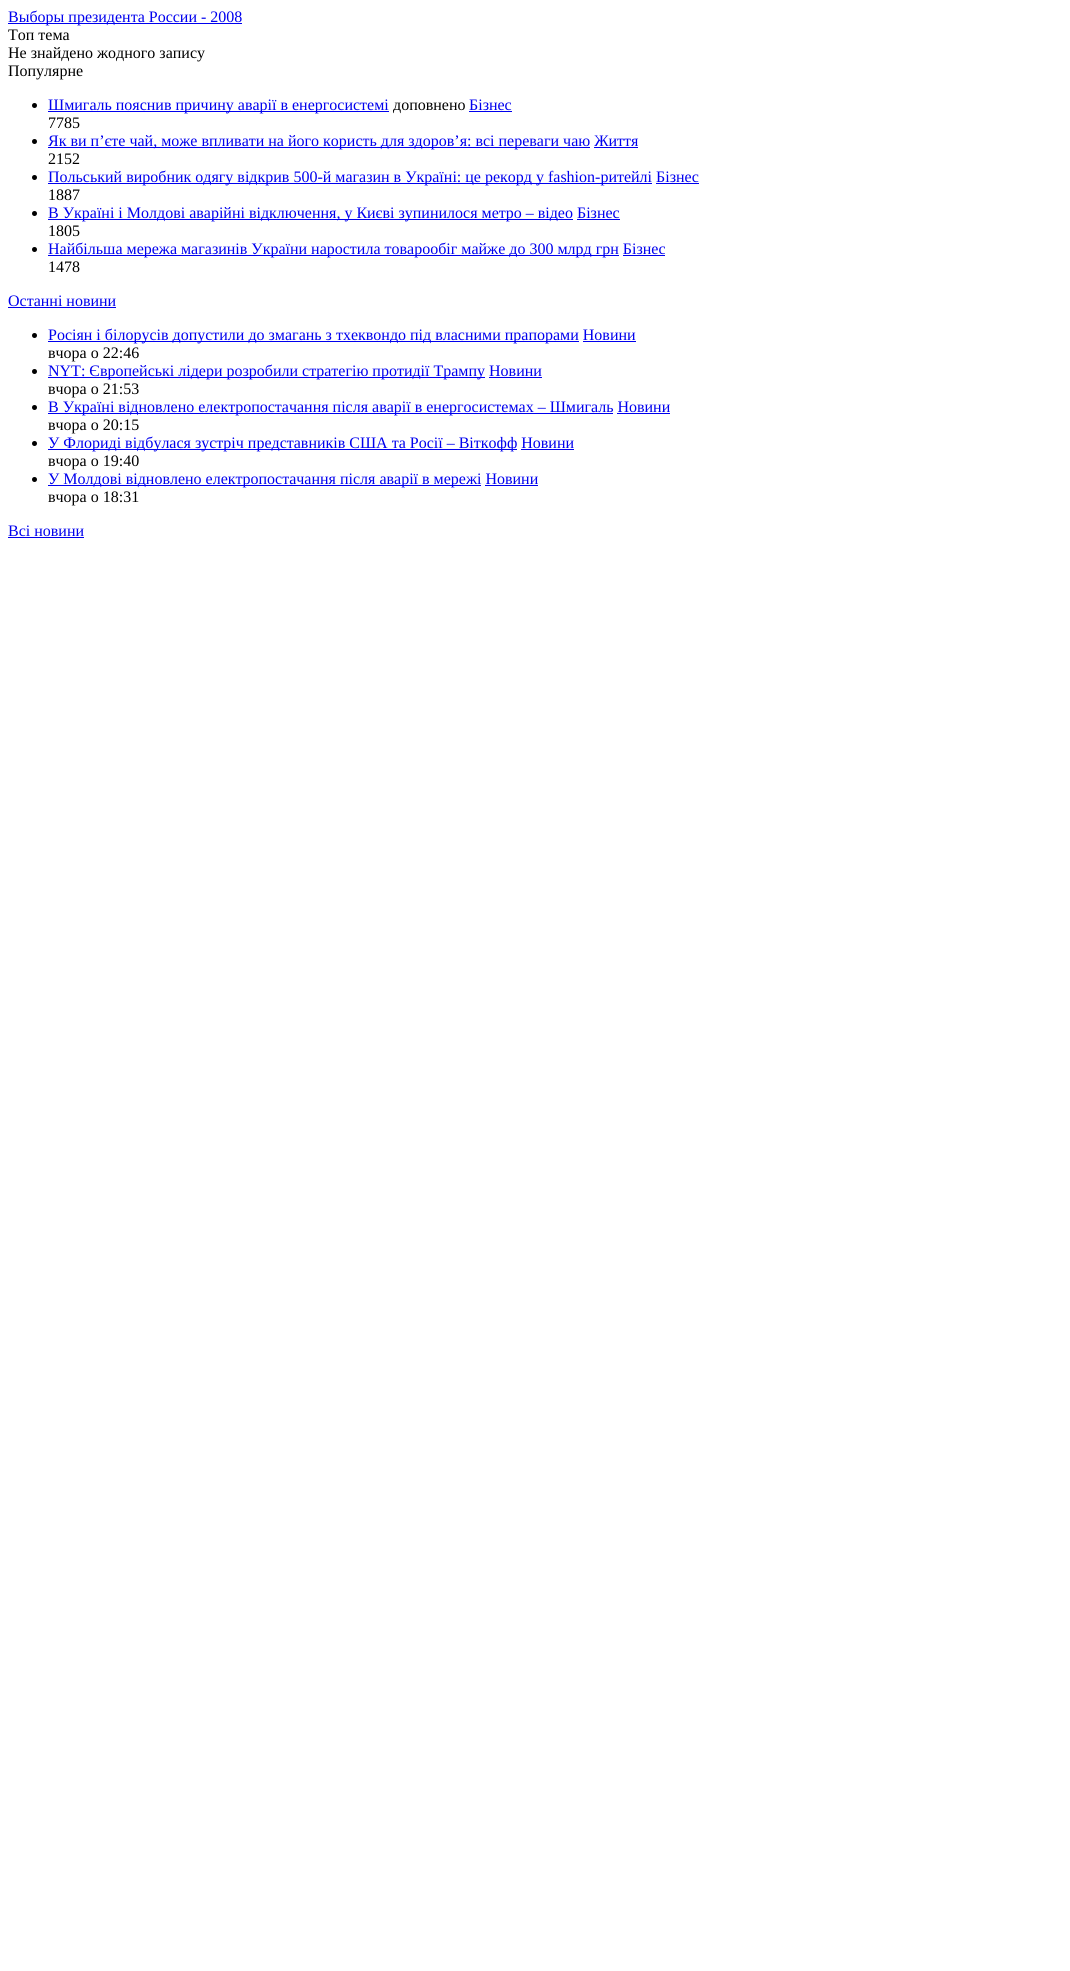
import math
import cairo

surface = cairo.ImageSurface(cairo.FORMAT_RGB24, 1070, 1971)
cr = cairo.Context(surface)
options = cairo.FontOptions()
options.set_hint_metrics(cairo.HINT_METRICS_OFF)
options.set_hint_style(cairo.HINT_STYLE_NONE)
cr.set_font_options(options)
cr.set_miter_limit(4)


def rgb(code):
    cr.set_source_rgb(*(v / 255 for v in bytes.fromhex(code[-6:])))


rgb("#ffffff")
cr.paint()
rgb("#0000ee")
cr.rectangle(8, 23, 234, 1)
cr.fill()
rgb("#000000")
cr.arc(34.5, 105.5, 2.5, 0, 2 * math.pi)
cr.fill()
rgb("#0000ee")
cr.rectangle(48, 111, 341, 1)
cr.fill()
cr.rectangle(469, 111, 43, 1)
cr.fill()
rgb("#000000")
cr.arc(34.5, 141.5, 2.5, 0, 2 * math.pi)
cr.fill()
rgb("#0000ee")
cr.rectangle(48, 147, 542, 1)
cr.fill()
cr.rectangle(594, 147, 44, 1)
cr.fill()
rgb("#000000")
cr.arc(34.5, 177.5, 2.5, 0, 2 * math.pi)
cr.fill()
rgb("#0000ee")
cr.rectangle(48, 183, 604, 1)
cr.fill()
cr.rectangle(656, 183, 43, 1)
cr.fill()
rgb("#000000")
cr.arc(34.5, 213.5, 2.5, 0, 2 * math.pi)
cr.fill()
rgb("#0000ee")
cr.rectangle(48, 219, 525, 1)
cr.fill()
cr.rectangle(577, 219, 43, 1)
cr.fill()
rgb("#000000")
cr.arc(34.5, 249.5, 2.5, 0, 2 * math.pi)
cr.fill()
for x, y, w, h, color in [
    (48, 255, 571, 1, "#0000ee"),
    (623, 255, 42, 1, "#0000ee"),
    (8, 307, 108, 1, "#0000ee"),
]:
    rgb(color)
    cr.rectangle(x, y, w, h)
    cr.fill()
rgb("#000000")
cr.arc(34.5, 335.5, 2.5, 0, 2 * math.pi)
cr.fill()
rgb("#0000ee")
cr.rectangle(48, 341, 531, 1)
cr.fill()
cr.rectangle(583, 341, 53, 1)
cr.fill()
rgb("#000000")
cr.arc(34.5, 371.5, 2.5, 0, 2 * math.pi)
cr.fill()
rgb("#0000ee")
cr.rectangle(48, 377, 437, 1)
cr.fill()
cr.rectangle(489, 377, 53, 1)
cr.fill()
rgb("#000000")
cr.arc(34.5, 407.5, 2.5, 0, 2 * math.pi)
cr.fill()
rgb("#0000ee")
cr.rectangle(48, 413, 565, 1)
cr.fill()
cr.rectangle(617, 413, 53, 1)
cr.fill()
rgb("#000000")
cr.arc(34.5, 443.5, 2.5, 0, 2 * math.pi)
cr.fill()
rgb("#0000ee")
cr.rectangle(48, 449, 469, 1)
cr.fill()
cr.rectangle(521, 449, 53, 1)
cr.fill()
rgb("#000000")
cr.arc(34.5, 479.5, 2.5, 0, 2 * math.pi)
cr.fill()
for x, y, w, h, color in [
    (48, 485, 433, 1, "#0000ee"),
    (485, 485, 53, 1, "#0000ee"),
    (8, 537, 76, 1, "#0000ee"),
]:
    rgb(color)
    cr.rectangle(x, y, w, h)
    cr.fill()
cr.select_font_face("Liberation Serif")
cr.set_font_size(16)
cr.move_to(8, 22)
cr.show_text("Выборы президента России - 2008")
rgb("#000000")
for x, y, s in [
    (8, 40, "Топ тема"),
    (8, 58, "Не знайдено жодного запису"),
    (8, 76, "Популярне"),
]:
    cr.move_to(x, y)
    cr.show_text(s)
rgb("#0000ee")
cr.move_to(48, 110)
cr.show_text("Шмигаль пояснив причину аварії в енергосистемі")
rgb("#000000")
cr.move_to(393, 110)
cr.show_text("доповнено")
rgb("#0000ee")
cr.move_to(469, 110)
cr.show_text("Бізнес")
rgb("#000000")
cr.move_to(48, 128)
cr.show_text("7785")
rgb("#0000ee")
cr.move_to(48, 146)
cr.show_text("Як ви п’єте чай, може впливати на його користь для здоров’я: всі переваги чаю Життя")
rgb("#000000")
cr.move_to(48, 164)
cr.show_text("2152")
rgb("#0000ee")
cr.move_to(48, 182)
cr.show_text("Польський виробник одягу відкрив 500-й магазин в Україні: це рекорд у fashion-ритейлі Бізнес")
rgb("#000000")
cr.move_to(48, 200)
cr.show_text("1887")
rgb("#0000ee")
cr.move_to(48, 218)
cr.show_text("В Україні і Молдові аварійні відключення, у Києві зупинилося метро – відео Бізнес")
rgb("#000000")
cr.move_to(48, 236)
cr.show_text("1805")
rgb("#0000ee")
cr.move_to(48, 254)
cr.show_text("Найбільша мережа магазинів України наростила товарообіг майже до 300 млрд грн Бізнес")
rgb("#000000")
cr.move_to(48, 272)
cr.show_text("1478")
rgb("#0000ee")
cr.move_to(8, 306)
cr.show_text("Останні новини")
cr.move_to(48, 340)
cr.show_text("Росіян і білорусів допустили до змагань з тхеквондо під власними прапорами Новини")
rgb("#000000")
cr.move_to(48, 358)
cr.show_text("вчора о 22:46")
rgb("#0000ee")
cr.move_to(48, 376)
cr.show_text("NYT: Європейські лідери розробили стратегію протидії Трампу Новини")
rgb("#000000")
cr.move_to(48, 394)
cr.show_text("вчора о 21:53")
rgb("#0000ee")
cr.move_to(48, 412)
cr.show_text("В Україні відновлено електропостачання після аварії в енергосистемах – Шмигаль Новини")
rgb("#000000")
cr.move_to(48, 430)
cr.show_text("вчора о 20:15")
rgb("#0000ee")
cr.move_to(48, 448)
cr.show_text("У Флориді відбулася зустріч представників США та Росії – Віткофф Новини")
rgb("#000000")
cr.move_to(48, 466)
cr.show_text("вчора о 19:40")
rgb("#0000ee")
cr.move_to(48, 484)
cr.show_text("У Молдові відновлено електропостачання після аварії в мережі Новини")
rgb("#000000")
cr.move_to(48, 502)
cr.show_text("вчора о 18:31")
rgb("#0000ee")
cr.move_to(8, 536)
cr.show_text("Всі новини")
surface.write_to_png("page.png")
